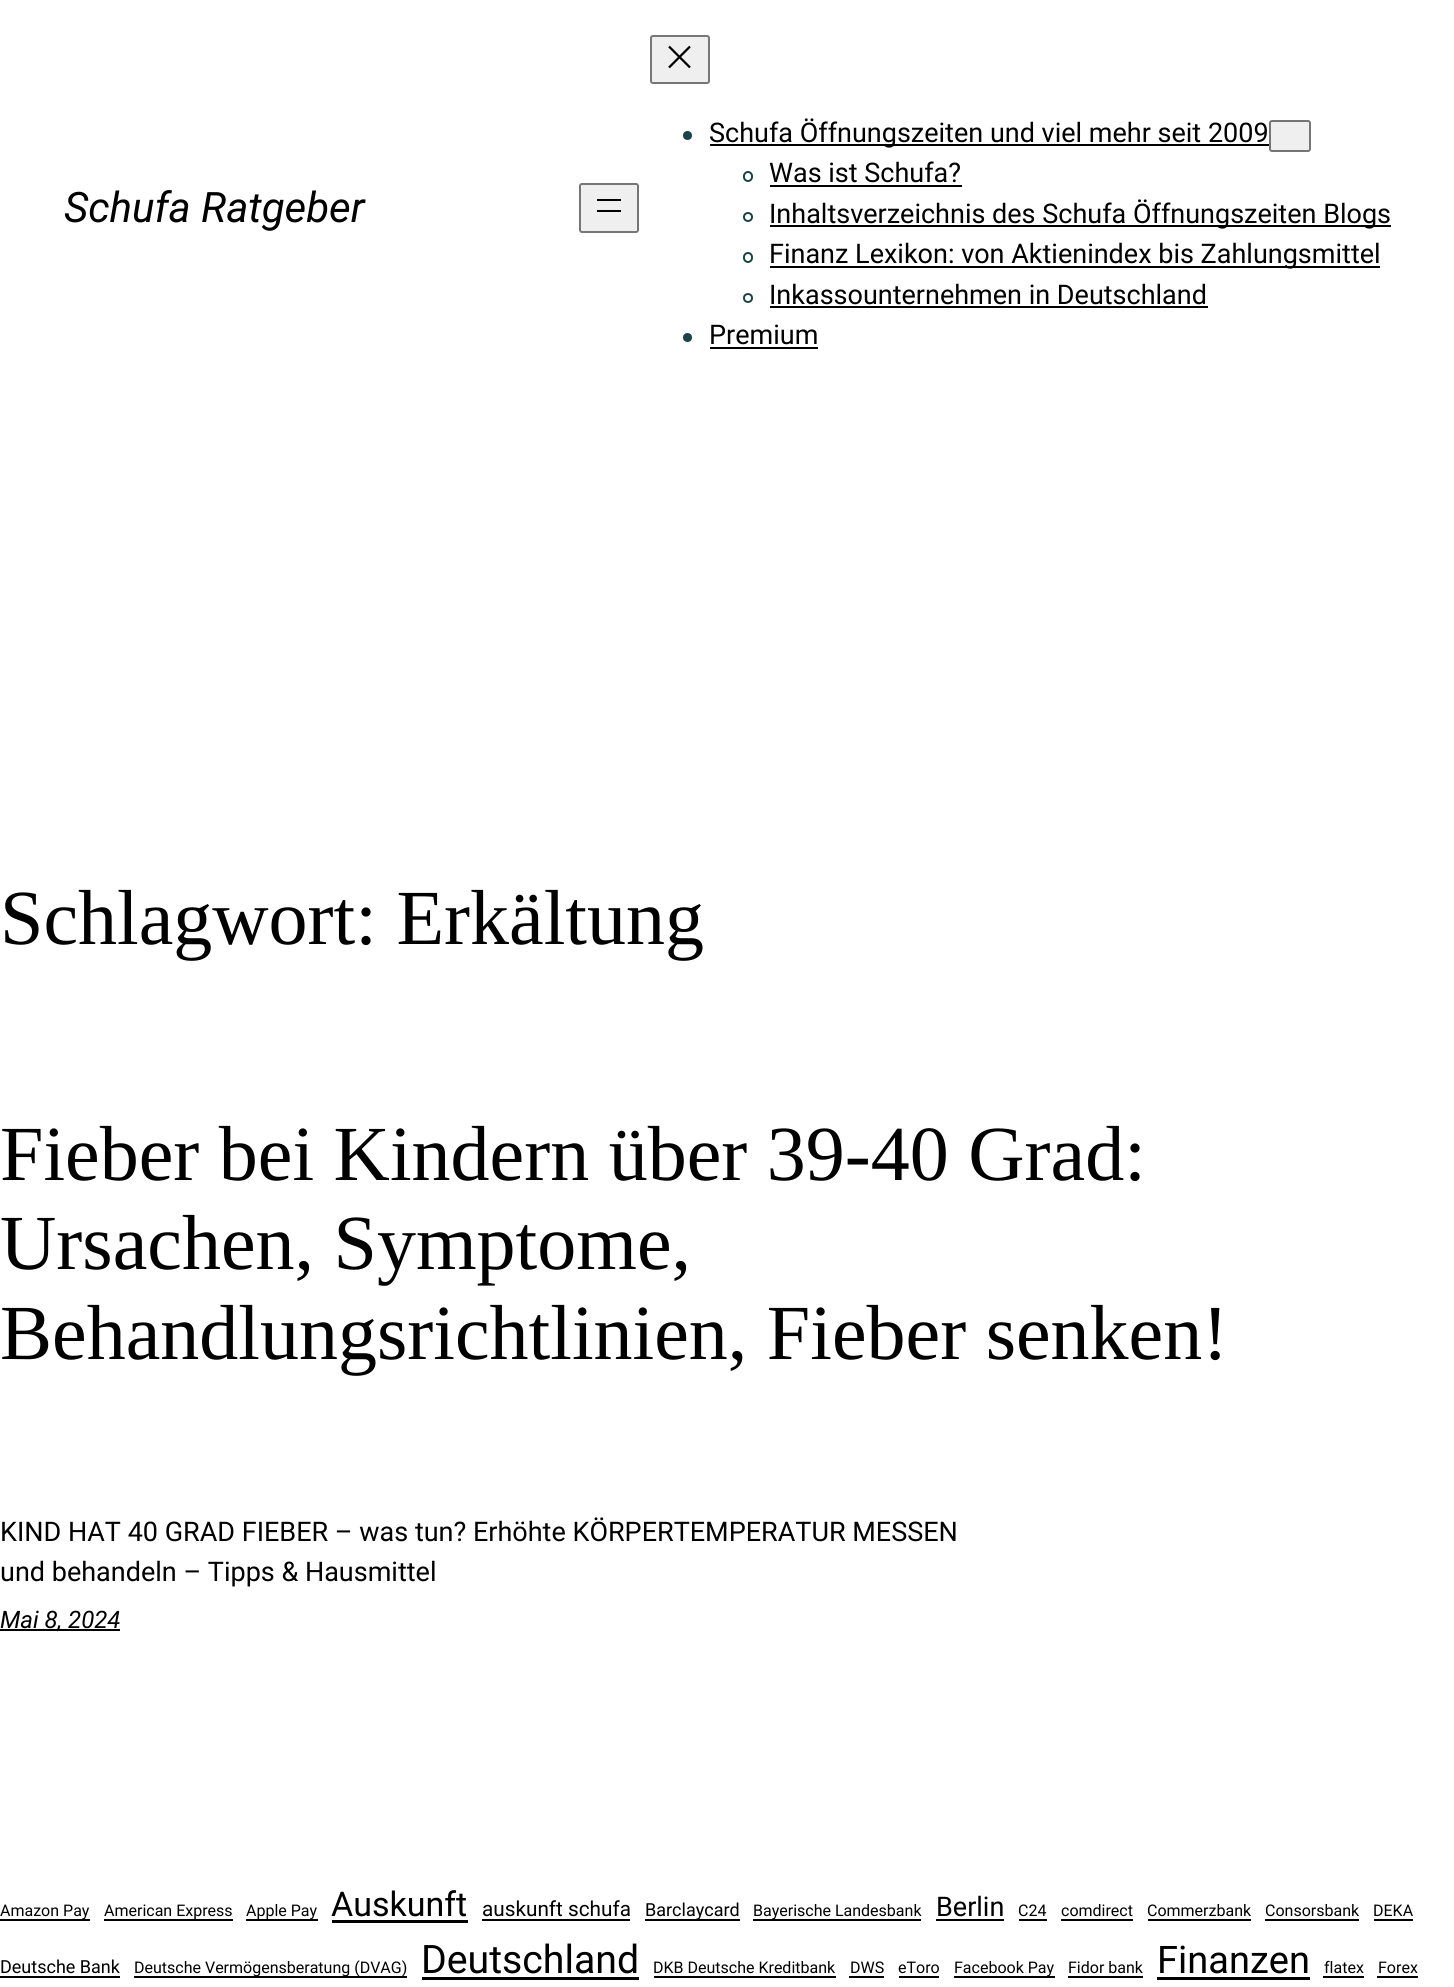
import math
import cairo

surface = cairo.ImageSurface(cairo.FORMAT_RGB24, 1454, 1987)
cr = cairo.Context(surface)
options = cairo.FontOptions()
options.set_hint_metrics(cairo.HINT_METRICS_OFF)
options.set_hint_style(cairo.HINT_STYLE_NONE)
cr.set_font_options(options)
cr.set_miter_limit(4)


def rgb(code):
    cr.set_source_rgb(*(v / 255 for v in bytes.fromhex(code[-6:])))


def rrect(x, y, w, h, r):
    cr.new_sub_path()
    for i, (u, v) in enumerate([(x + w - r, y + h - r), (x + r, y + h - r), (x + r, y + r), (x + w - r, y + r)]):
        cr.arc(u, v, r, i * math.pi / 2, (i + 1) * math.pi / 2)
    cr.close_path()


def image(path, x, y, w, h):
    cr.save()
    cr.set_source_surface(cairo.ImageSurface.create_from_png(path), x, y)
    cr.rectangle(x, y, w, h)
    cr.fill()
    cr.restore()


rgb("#ffffff")
cr.paint()
rgb("#efefef")
rrect(580, 184, 58, 48, 2)
cr.fill_preserve()
rgb("#767676")
cr.stroke()
rgb("#000000")
cr.rectangle(597, 199, 24, 2)
cr.fill()
cr.rectangle(597, 210, 24, 2)
cr.fill()
rgb("#efefef")
rrect(651, 36, 58, 47, 2)
cr.fill_preserve()
rgb("#767676")
cr.stroke()
image("img/1.png", 668, 45, 23, 24)
rgb("#1a4548")
cr.arc(687.5, 135.5, 4.5, 0, 2 * math.pi)
cr.fill()
rgb("#000000")
cr.rectangle(710, 144, 559, 2)
cr.fill()
rgb("#efefef")
rrect(1270, 121, 40, 30, 2)
cr.fill_preserve()
rgb("#767676")
cr.stroke()
rrect(744, 172, 8, 9, 4)
rgb("#1a4548")
cr.stroke()
rgb("#000000")
cr.rectangle(770, 185, 192, 2)
cr.fill()
cr.arc(748, 217, 4, 0, 2 * math.pi)
rgb("#1a4548")
cr.stroke()
rgb("#000000")
cr.rectangle(770, 225, 621, 2)
cr.fill()
rrect(744, 253, 8, 9, 4)
rgb("#1a4548")
cr.stroke()
rgb("#000000")
cr.rectangle(770, 266, 610, 2)
cr.fill()
cr.arc(748, 298, 4, 0, 2 * math.pi)
rgb("#1a4548")
cr.stroke()
rgb("#000000")
cr.rectangle(770, 306, 438, 2)
cr.fill()
rgb("#1a4548")
cr.arc(687.5, 337.5, 4.5, 0, 2 * math.pi)
cr.fill()
for x, y, w, h, color in [
    (710, 347, 108, 2, "#000000"),
    (0, 1629, 120, 2, "#000000"),
    (0, 1919, 90, 2, "#000000"),
    (104, 1919, 129, 2, "#000000"),
    (246, 1919, 72, 2, "#000000"),
    (332, 1920, 136, 3, "#000000"),
    (482, 1919, 148, 2, "#000000"),
    (645, 1919, 95, 2, "#000000"),
    (753, 1919, 168, 2, "#000000"),
    (936, 1919, 68, 2, "#000000"),
    (1019, 1919, 28, 2, "#000000"),
    (1061, 1919, 72, 2, "#000000"),
    (1148, 1919, 103, 2, "#000000"),
    (1265, 1919, 94, 2, "#000000"),
    (1374, 1919, 39, 2, "#000000"),
    (0, 1976, 120, 2, "#000000"),
    (134, 1976, 273, 2, "#000000"),
    (422, 1977, 217, 3, "#000000"),
    (654, 1976, 182, 2, "#000000"),
    (849, 1976, 35, 2, "#000000"),
    (899, 1976, 40, 2, "#000000"),
    (954, 1976, 101, 2, "#000000"),
    (1068, 1976, 75, 2, "#000000"),
    (1157, 1977, 153, 3, "#000000"),
    (1323, 1976, 41, 2, "#000000"),
    (1377, 1976, 41, 2, "#000000"),
]:
    rgb(color)
    cr.rectangle(x, y, w, h)
    cr.fill()
cr.select_font_face("Roboto", cairo.FONT_SLANT_ITALIC)
cr.set_font_size(42)
cr.move_to(64, 222)
cr.show_text("Schufa Ratgeber")
cr.select_font_face("Roboto")
cr.set_font_size(27)
for x, y, s in [
    (709, 142, "Schufa Öffnungszeiten und viel mehr seit 2009"),
    (769, 182, "Was ist Schufa?"),
    (769, 223, "Inhaltsverzeichnis des Schufa Öffnungszeiten Blogs"),
    (769, 263, "Finanz Lexikon: von Aktienindex bis Zahlungsmittel"),
    (769, 304, "Inkassounternehmen in Deutschland"),
    (709, 344, "Premium"),
]:
    cr.move_to(x, y)
    cr.show_text(s)
cr.select_font_face("Liberation Serif")
cr.set_font_size(78)
for x, y, s in [
    (0, 944, "Schlagwort: Erkältung"),
    (0, 1180, "Fieber bei Kindern über 39-40 Grad:"),
    (0, 1269, "Ursachen, Symptome,"),
    (0, 1359, "Behandlungsrichtlinien, Fieber senken!"),
]:
    cr.move_to(x, y)
    cr.show_text(s)
cr.select_font_face("Roboto")
cr.set_font_size(27)
cr.move_to(0, 1541)
cr.show_text("KIND HAT 40 GRAD FIEBER – was tun? Erhöhte KÖRPERTEMPERATUR MESSEN")
cr.move_to(0, 1581)
cr.show_text("und behandeln – Tipps & Hausmittel")
cr.select_font_face("Roboto", cairo.FONT_SLANT_ITALIC)
cr.set_font_size(24)
cr.move_to(0, 1628)
cr.show_text("Mai 8, 2024")
cr.select_font_face("Roboto")
cr.set_font_size(16)
for x, y, s in [
    (0, 1916, "Amazon Pay"),
    (104, 1916, "American Express"),
    (246, 1916, "Apple Pay"),
]:
    cr.move_to(x, y)
    cr.show_text(s)
cr.set_font_size(34)
cr.move_to(331, 1916)
cr.show_text("Auskunft")
cr.set_font_size(20.75)
cr.move_to(482, 1916)
cr.show_text("auskunft schufa")
cr.set_font_size(18)
cr.move_to(645, 1916)
cr.show_text("Barclaycard")
cr.set_font_size(16)
cr.move_to(753, 1916)
cr.show_text("Bayerische Landesbank")
cr.set_font_size(27)
cr.move_to(936, 1916)
cr.show_text("Berlin")
cr.set_font_size(16)
for x, y, s in [
    (1018, 1916, "C24"),
    (1061, 1916, "comdirect"),
    (1147, 1916, "Commerzbank"),
    (1265, 1916, "Consorsbank"),
    (1373, 1916, "DEKA"),
]:
    cr.move_to(x, y)
    cr.show_text(s)
cr.set_font_size(18)
cr.move_to(0, 1973)
cr.show_text("Deutsche Bank")
cr.set_font_size(16)
cr.move_to(134, 1973)
cr.show_text("Deutsche Vermögensberatung (DVAG)")
cr.set_font_size(39.25)
cr.move_to(421, 1973)
cr.show_text("Deutschland")
cr.set_font_size(16)
for x, y, s in [
    (653, 1973, "DKB Deutsche Kreditbank"),
    (850, 1973, "DWS"),
    (898, 1973, "eToro"),
    (954, 1973, "Facebook Pay"),
    (1068, 1973, "Fidor bank"),
]:
    cr.move_to(x, y)
    cr.show_text(s)
cr.set_font_size(38)
cr.move_to(1157, 1973)
cr.show_text("Finanzen")
cr.set_font_size(16)
cr.move_to(1324, 1973)
cr.show_text("flatex")
cr.move_to(1378, 1973)
cr.show_text("Forex")
surface.write_to_png("page.png")
